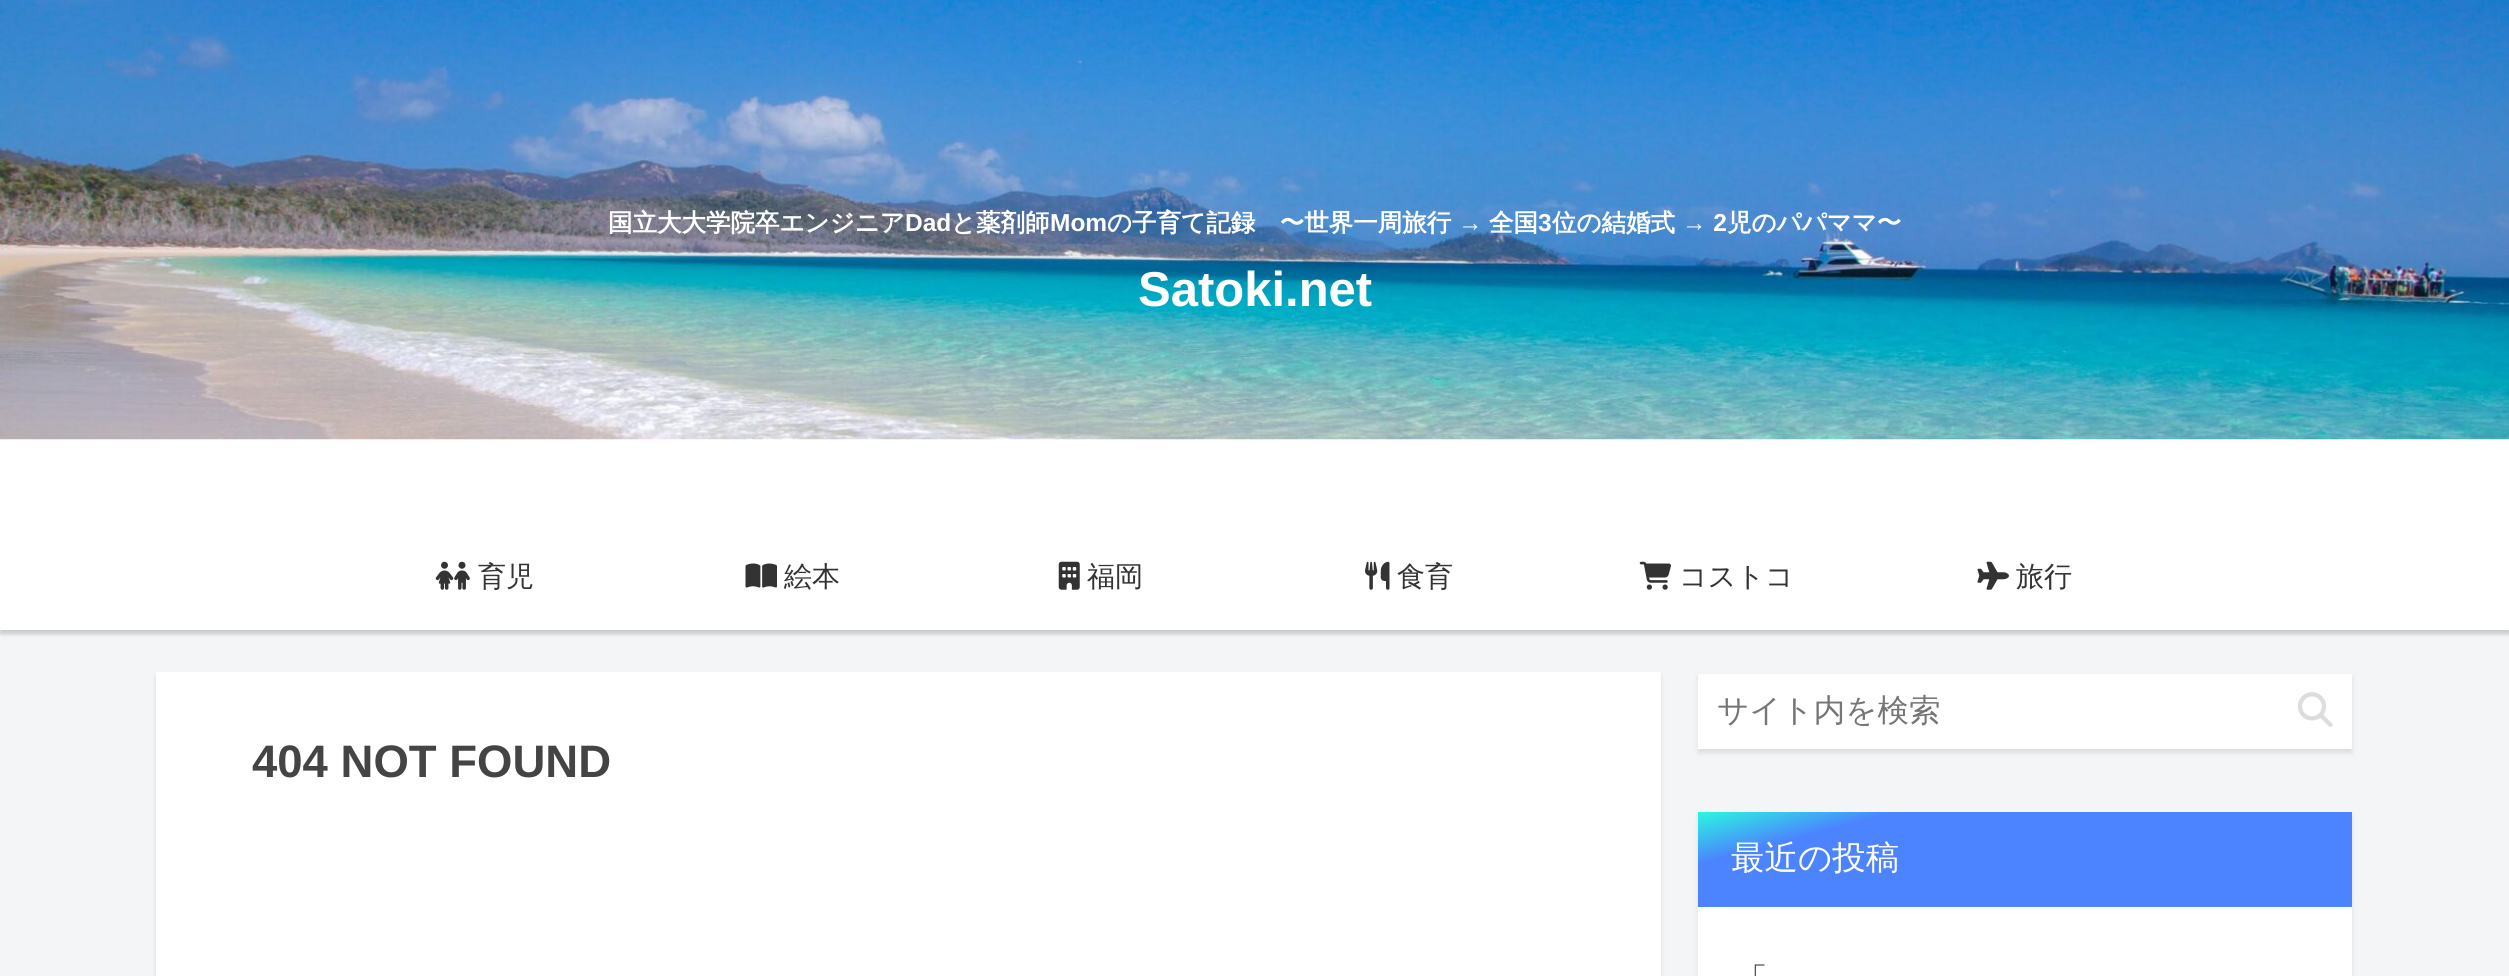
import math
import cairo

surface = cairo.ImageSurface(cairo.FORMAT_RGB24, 2509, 976)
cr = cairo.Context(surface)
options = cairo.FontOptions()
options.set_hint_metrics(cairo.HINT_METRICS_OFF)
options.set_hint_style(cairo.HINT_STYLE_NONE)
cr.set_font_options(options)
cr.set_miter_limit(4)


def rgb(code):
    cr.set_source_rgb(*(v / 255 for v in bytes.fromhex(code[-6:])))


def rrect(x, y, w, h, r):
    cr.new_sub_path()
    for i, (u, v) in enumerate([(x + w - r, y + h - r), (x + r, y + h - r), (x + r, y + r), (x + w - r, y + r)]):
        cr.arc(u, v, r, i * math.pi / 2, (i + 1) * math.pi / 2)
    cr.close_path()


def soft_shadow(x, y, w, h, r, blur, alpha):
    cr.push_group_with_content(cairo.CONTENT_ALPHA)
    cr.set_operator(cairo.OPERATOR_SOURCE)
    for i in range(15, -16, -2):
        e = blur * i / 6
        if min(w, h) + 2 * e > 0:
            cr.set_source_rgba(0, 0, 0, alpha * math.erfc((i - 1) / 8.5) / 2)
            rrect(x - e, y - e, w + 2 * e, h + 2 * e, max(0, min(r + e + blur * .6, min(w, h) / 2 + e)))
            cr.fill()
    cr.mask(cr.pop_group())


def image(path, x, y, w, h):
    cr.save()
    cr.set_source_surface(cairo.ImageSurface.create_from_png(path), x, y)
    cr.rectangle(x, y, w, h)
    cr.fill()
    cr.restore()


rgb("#f4f5f7")
cr.paint()
rgb("#000000")
soft_shadow(0, 4, 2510, 630, 0, 2.5, 0.1)
rgb("#ffffff")
cr.rectangle(0, 439, 2509, 191)
cr.fill()
image("img/1.png", 0, 0, 2509, 440)
cr.save()
cr.rectangle(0, 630, 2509, 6)
cr.clip()
rgb("#000000")
soft_shadow(0, 529, 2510, 105, 0, 2.5, 0.1)
cr.restore()
image("img/2.png", 435, 561, 35, 29)
image("img/3.png", 745, 563, 32, 25)
image("img/4.png", 1058, 561, 22, 29)
image("img/5.png", 1365, 561, 25, 29)
image("img/6.png", 1639, 561, 32, 29)
image("img/7.png", 1977, 561, 32, 29)
rgb("#000000")
soft_shadow(156, 676, 1505, 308, 0, 2.5, 0.1)
rgb("#ffffff")
cr.rectangle(156, 672, 1505, 304)
cr.fill()
rgb("#000000")
soft_shadow(1698, 677, 654, 76, 0, 2.5, 0.1)
rgb("#ffffff")
cr.rectangle(1698, 674, 654, 75)
cr.fill()
image("img/8.png", 2297, 692, 36, 35)
rgb("#000000")
soft_shadow(1698, 816, 654, 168, 0, 2.5, 0.1)
rgb("#ffffff")
cr.rectangle(1698, 907, 654, 69)
cr.fill()
gradient = cairo.LinearGradient(1991, 733, 2058, 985)
gradient.add_color_stop_rgba(0, 0.165, 0.98, 0.875, 1)
gradient.add_color_stop_rgba(0.2, 0.298, 0.514, 1, 1)
cr.set_source(gradient)
cr.rectangle(1698, 812, 654, 95)
cr.fill()
cr.select_font_face("WenQuanYi Zen Hei", cairo.FONT_SLANT_NORMAL, cairo.FONT_WEIGHT_BOLD)
cr.set_font_size(24.5)
rgb("#ffffff")
cr.move_to(608, 231)
cr.show_text("国立大大学院卒エンジニア")
cr.select_font_face("Liberation Sans", cairo.FONT_SLANT_NORMAL, cairo.FONT_WEIGHT_BOLD)
cr.move_to(905, 231)
cr.show_text("Dad")
cr.select_font_face("WenQuanYi Zen Hei", cairo.FONT_SLANT_NORMAL, cairo.FONT_WEIGHT_BOLD)
cr.move_to(951, 231)
cr.show_text("と薬剤師")
cr.select_font_face("Liberation Sans", cairo.FONT_SLANT_NORMAL, cairo.FONT_WEIGHT_BOLD)
cr.move_to(1050, 231)
cr.show_text("Mom")
cr.select_font_face("WenQuanYi Zen Hei", cairo.FONT_SLANT_NORMAL, cairo.FONT_WEIGHT_BOLD)
cr.move_to(1107, 231)
cr.show_text("の子育て記録　〜世界一周旅行")
cr.select_font_face("Liberation Sans", cairo.FONT_SLANT_NORMAL, cairo.FONT_WEIGHT_BOLD)
cr.move_to(1458, 231)
cr.show_text("→")
cr.select_font_face("WenQuanYi Zen Hei", cairo.FONT_SLANT_NORMAL, cairo.FONT_WEIGHT_BOLD)
cr.move_to(1489, 231)
cr.show_text("全国")
cr.select_font_face("Liberation Sans", cairo.FONT_SLANT_NORMAL, cairo.FONT_WEIGHT_BOLD)
cr.move_to(1538, 231)
cr.show_text("3")
cr.select_font_face("WenQuanYi Zen Hei", cairo.FONT_SLANT_NORMAL, cairo.FONT_WEIGHT_BOLD)
cr.move_to(1552, 231)
cr.show_text("位の結婚式")
cr.select_font_face("Liberation Sans", cairo.FONT_SLANT_NORMAL, cairo.FONT_WEIGHT_BOLD)
cr.move_to(1682, 231)
cr.show_text("→ 2")
cr.select_font_face("WenQuanYi Zen Hei", cairo.FONT_SLANT_NORMAL, cairo.FONT_WEIGHT_BOLD)
cr.move_to(1727, 231)
cr.show_text("児のパパママ〜")
cr.select_font_face("Liberation Sans", cairo.FONT_SLANT_NORMAL, cairo.FONT_WEIGHT_BOLD)
cr.set_font_size(49)
cr.move_to(1138, 306)
cr.show_text("Satoki.net")
cr.select_font_face("WenQuanYi Zen Hei Medium")
cr.set_font_size(28)
rgb("#333333")
for x, y, s in [
    (478, 586, "育児"),
    (784, 586, "絵本"),
    (1087, 586, "福岡"),
    (1397, 586, "食育"),
    (1679, 586, "コストコ"),
    (2016, 586, "旅行"),
]:
    cr.move_to(x, y)
    cr.show_text(s)
cr.select_font_face("Liberation Sans", cairo.FONT_SLANT_NORMAL, cairo.FONT_WEIGHT_BOLD)
cr.set_font_size(45.5)
rgb("#444444")
cr.move_to(252, 777)
cr.show_text("404 NOT FOUND")
cr.select_font_face("WenQuanYi Zen Hei Medium")
cr.set_font_size(31.5)
rgb("#757575")
cr.move_to(1717, 721)
cr.show_text("サイト内を検索")
cr.set_font_size(33.5)
rgb("#ffffff")
cr.move_to(1731, 869)
cr.show_text("最近の投稿")
cr.set_font_size(31.5)
rgb("#333333")
cr.move_to(1736, 990)
cr.show_text("「")
surface.write_to_png("page.png")
